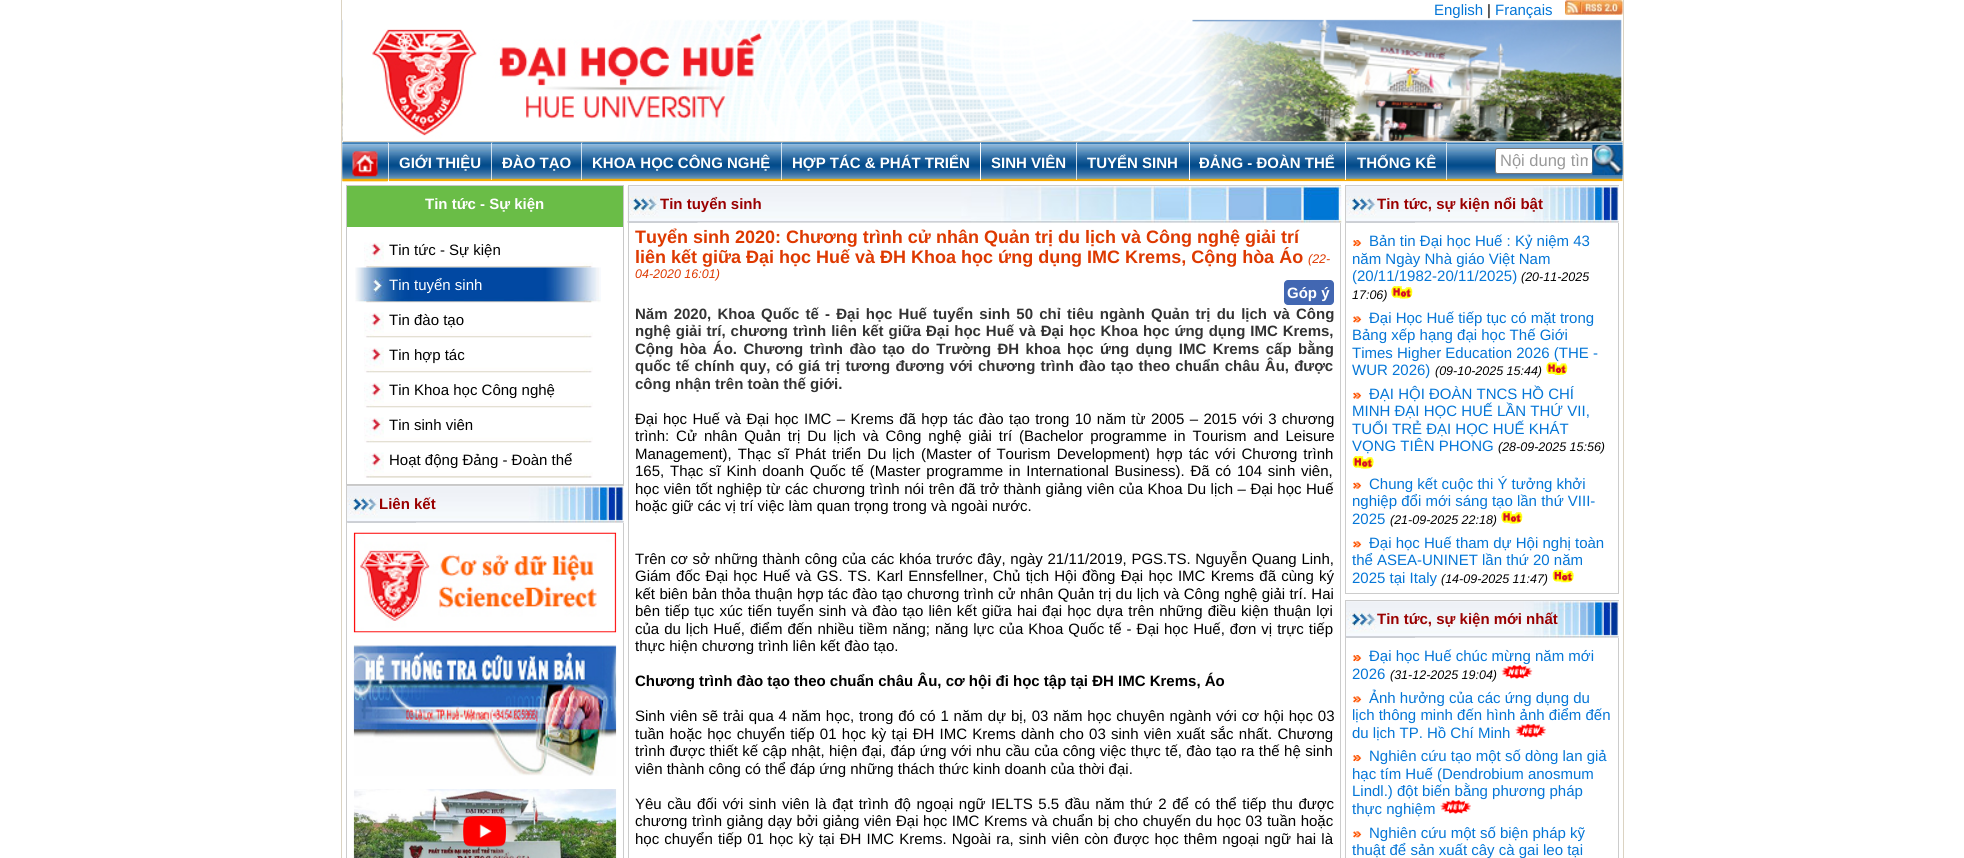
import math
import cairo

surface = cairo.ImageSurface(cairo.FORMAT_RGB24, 1964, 858)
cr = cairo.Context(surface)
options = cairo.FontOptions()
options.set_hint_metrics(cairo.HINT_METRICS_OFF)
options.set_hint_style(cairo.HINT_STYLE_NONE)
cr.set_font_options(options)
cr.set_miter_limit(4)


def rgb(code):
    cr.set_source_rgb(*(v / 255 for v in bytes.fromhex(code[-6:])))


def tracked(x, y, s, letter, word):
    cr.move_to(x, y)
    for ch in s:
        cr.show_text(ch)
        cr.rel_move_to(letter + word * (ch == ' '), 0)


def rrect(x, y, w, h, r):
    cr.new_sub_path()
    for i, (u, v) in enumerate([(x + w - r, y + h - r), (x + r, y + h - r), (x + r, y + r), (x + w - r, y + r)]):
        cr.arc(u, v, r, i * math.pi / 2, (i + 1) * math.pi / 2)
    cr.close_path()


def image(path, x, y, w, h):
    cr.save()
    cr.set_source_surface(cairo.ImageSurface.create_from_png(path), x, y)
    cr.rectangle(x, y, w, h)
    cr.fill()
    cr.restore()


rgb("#ffffff")
cr.paint()
rgb("#dbd3c2")
cr.rectangle(1623, 0, 1, 858)
cr.fill()
cr.rectangle(341, 0, 1, 858)
cr.fill()
image("img/1.png", 1565, 0, 58, 15)
image("img/2.png", 342, 19, 1280, 123)
image("img/3.png", 342, 142, 1281, 40)
cr.rectangle(343, 141, 1280, 1)
cr.fill()
rgb("#ffffff")
cr.rectangle(388, 143, 1, 40)
cr.fill()
image("img/4.png", 342, 142, 46, 40)
image("img/5.png", 352, 151, 26, 26)
cr.rectangle(491, 143, 1, 37)
cr.fill()
image("img/6.png", 388, 142, 104, 38)
cr.rectangle(581, 143, 1, 37)
cr.fill()
image("img/7.png", 492, 142, 90, 38)
cr.rectangle(781, 143, 1, 37)
cr.fill()
image("img/8.png", 582, 142, 200, 38)
cr.rectangle(980, 143, 1, 37)
cr.fill()
image("img/9.png", 782, 142, 198, 1)
cr.rectangle(1076, 143, 1, 37)
cr.fill()
image("img/10.png", 981, 142, 96, 38)
cr.rectangle(1189, 143, 1, 37)
cr.fill()
image("img/11.png", 1077, 142, 112, 1)
for x, y, w, h, color in [
    (1345, 143, 1, 37, "#ffffff"),
    (1190, 142, 155, 1, "#5b8fbd"),
    (1446, 143, 1, 37, "#ffffff"),
]:
    rgb(color)
    cr.rectangle(x, y, w, h)
    cr.fill()
image("img/12.png", 1346, 142, 101, 38)
rrect(1495.5, 148.5, 97, 25, 2)
cr.fill_preserve()
rgb("#767676")
cr.set_line_width(1)
cr.stroke()
image("img/13.png", 1592, 145, 31, 30)
cr.rectangle(346.5, 185.5, 277, 299)
rgb("#c8c8c8")
cr.stroke()
rgb("#6abd47")
cr.rectangle(347, 186, 276, 41)
cr.fill()
image("img/14.png", 364, 242, 229, 26)
image("img/15.png", 355, 267, 246, 36)
image("img/16.png", 364, 302, 229, 36)
image("img/17.png", 364, 337, 229, 36)
image("img/17.png", 364, 372, 229, 36)
image("img/17.png", 364, 407, 229, 36)
image("img/17.png", 364, 442, 229, 36)
image("img/18.png", 347, 486, 277, 37)
rgb("#cccccc")
cr.rectangle(346, 485, 278, 1)
cr.fill()
image("img/19.png", 347, 496, 69, 27)
cr.rectangle(346, 486, 1, 372)
cr.fill()
cr.rectangle(623, 523, 1, 335)
cr.fill()
image("img/20.png", 353, 532, 264, 101)
image("img/21.png", 353, 645, 264, 131)
image("img/22.png", 353, 789, 264, 69)
image("img/23.png", 627, 186, 715, 37)
cr.rectangle(628, 185, 713, 1)
cr.fill()
image("img/24.png", 629, 196, 69, 27)
cr.rectangle(628, 186, 1, 672)
cr.fill()
cr.rectangle(1340, 223, 1, 635)
cr.fill()
rgb("#4267b2")
rrect(1284, 280, 50, 25, 4)
cr.fill()
image("img/25.png", 1346, 186, 273, 37)
rgb("#cccccc")
cr.rectangle(1345, 185, 274, 1)
cr.fill()
image("img/26.png", 1346, 196, 69, 27)
for x, y, w, h, color in [
    (1345, 186, 1, 37, "#cccccc"),
    (1618, 223, 1, 371, "#cccccc"),
    (1345, 593, 274, 1, "#cccccc"),
    (1345, 223, 1, 371, "#cccccc"),
]:
    rgb(color)
    cr.rectangle(x, y, w, h)
    cr.fill()
image("img/27.png", 1352, 240, 10, 7)
image("img/28.png", 1391, 286, 22, 13)
image("img/29.png", 1352, 316, 10, 7)
image("img/30.png", 1546, 362, 22, 13)
image("img/31.png", 1352, 392, 10, 7)
image("img/32.png", 1352, 456, 22, 13)
image("img/31.png", 1352, 482, 10, 7)
image("img/33.png", 1501, 511, 22, 13)
image("img/29.png", 1352, 541, 10, 7)
image("img/34.png", 1552, 569, 22, 14)
image("img/25.png", 1346, 601, 273, 37)
cr.rectangle(1345, 600, 274, 1)
cr.fill()
image("img/26.png", 1346, 611, 69, 27)
cr.rectangle(1345, 601, 1, 257)
cr.fill()
cr.rectangle(1618, 638, 1, 220)
cr.fill()
image("img/27.png", 1352, 655, 10, 7)
image("img/35.png", 1501, 665, 32, 14)
image("img/29.png", 1352, 696, 10, 7)
image("img/27.png", 1352, 755, 10, 7)
image("img/37.png", 1440, 800, 31, 14)
image("img/29.png", 1352, 831, 10, 7)
cr.select_font_face("Liberation Sans")
cr.set_font_size(15)
rgb("#0476d7")
cr.move_to(1434, 15)
cr.show_text("English")
rgb("#000000")
cr.move_to(1487, 15)
cr.show_text("|")
rgb("#0476d7")
cr.move_to(1495, 15)
cr.show_text("Français")
cr.select_font_face("Liberation Sans", cairo.FONT_SLANT_NORMAL, cairo.FONT_WEIGHT_BOLD)
rgb("#ffffff")
for x, y, s in [
    (399, 168, "GIỚI THIỆU"),
    (502, 168, "ĐÀO TẠO"),
    (592, 168, "KHOA HỌC CÔNG NGHỆ"),
    (792, 168, "HỢP TÁC & PHÁT TRIỂN"),
    (991, 168, "SINH VIÊN"),
    (1087, 168, "TUYỂN SINH"),
    (1199, 168, "ĐẢNG - ĐOÀN THỂ"),
    (1357, 168, "THỐNG KÊ"),
]:
    cr.move_to(x, y)
    cr.show_text(s)
cr.save()
cr.rectangle(1500, 151, 88, 19)
cr.clip()
cr.select_font_face("Liberation Sans")
cr.set_font_size(16.5)
rgb("#999999")
cr.move_to(1500, 166)
cr.show_text("Nội dung tìm")
cr.restore()
cr.move_to(425, 209)
cr.show_text("Tin tức - Sự kiện")
cr.select_font_face("Liberation Sans")
rgb("#000000")
cr.move_to(389, 255)
cr.show_text("Tin tức - Sự kiện")
rgb("#ffffff")
cr.move_to(389, 290)
cr.show_text("Tin tuyển sinh")
rgb("#000000")
for x, y, s in [
    (389, 325, "Tin đào tạo"),
    (389, 360, "Tin hợp tác"),
    (389, 395, "Tin Khoa học Công nghệ"),
    (389, 430, "Tin sinh viên"),
    (389, 465, "Hoạt động Đảng - Đoàn thể"),
]:
    cr.move_to(x, y)
    cr.show_text(s)
cr.select_font_face("Liberation Sans", cairo.FONT_SLANT_NORMAL, cairo.FONT_WEIGHT_BOLD)
rgb("#990000")
cr.move_to(379, 509)
cr.show_text("Liên kết")
cr.move_to(660, 209)
cr.show_text("Tin tuyển sinh")
cr.set_font_size(18)
rgb("#de3900")
cr.move_to(635, 243)
cr.show_text("Tuyển sinh 2020: Chương trình cử nhân Quản trị du lịch và Công nghệ giải trí")
cr.move_to(635, 263)
cr.show_text("liên kết giữa Đại học Huế và ĐH Khoa học ứng dụng IMC Krems, Cộng hòa Áo")
cr.select_font_face("Liberation Sans", cairo.FONT_SLANT_ITALIC)
cr.set_font_size(12.5)
cr.move_to(1308, 263)
cr.show_text("(22-")
cr.move_to(635, 278)
cr.show_text("04-2020 16:01)")
cr.select_font_face("Liberation Sans", cairo.FONT_SLANT_NORMAL, cairo.FONT_WEIGHT_BOLD)
cr.set_font_size(15)
rgb("#ffffff")
cr.move_to(1287, 298)
cr.show_text("Góp ý")
rgb("#333333")
tracked(635, 319, "Năm 2020, Khoa Quốc tế - Đại học Huế tuyển sinh 50 chỉ tiêu ngành Quản trị du lịch và Công", 0, 2)
tracked(635, 336, "nghệ giải trí, chương trình liên kết giữa Đại học Huế và Đại học Khoa học ứng dụng IMC Krems,", 0, 0.75)
tracked(635, 354, "Cộng hòa Áo. Chương trình đào tạo do Trường ĐH khoa học ứng dụng IMC Krems cấp bằng", 0, 2.25)
tracked(635, 371, "quốc tế chính quy, có giá trị tương đương với chương trình đào tạo theo chuẩn châu Âu, được", 0, 1)
cr.move_to(635, 389)
cr.show_text("công nhận trên toàn thế giới.")
cr.select_font_face("Liberation Sans")
rgb("#000000")
tracked(635, 424, "Đại học Huế và Đại học IMC – Krems đã hợp tác đào tạo trong 10 năm từ 2005 – 2015 với 3 chương", 0, 1.2)
tracked(635, 441, "trình: Cử nhân Quản trị Du lịch và Công nghệ giải trí (Bachelor programme in Tourism and Leisure", 0, 2.75)
tracked(635, 459, "Management), Thạc sĩ Phát triển Du lịch (Master of Tourism Development) hợp tác với Chương trình", 0, 1.9)
tracked(635, 476, "165, Thạc sĩ Kinh doanh Quốc tế (Master programme in International Business). Đã có 104 sinh viên,", 0, 1.6)
tracked(635, 494, "học viên tốt nghiệp từ các chương trình nói trên đã trở thành giảng viên của Khoa Du lịch – Đại học Huế", 0, 0.3)
cr.move_to(635, 511)
cr.show_text("hoặc giữ các vị trí việc làm quan trọng trong và ngoài nước.")
tracked(635, 564, "Trên cơ sở những thành công của các khóa trước đây, ngày 21/11/2019, PGS.TS. Nguyễn Quang Linh,", 0, 0.5)
tracked(635, 581, "Giám đốc Đại học Huế và GS. TS. Karl Ennsfellner, Chủ tịch Hội đồng Đại học IMC Krems đã cùng ký", 0, 1.1)
tracked(635, 599, "kết biên bản thỏa thuận hợp tác đào tạo chương trình cử nhân Quản trị du lịch và Công nghệ giải trí. Hai", 0, 0.2)
tracked(635, 616, "bên tiếp tục xúc tiến tuyển sinh và đào tạo liên kết giữa hai đại học dựa trên những điều kiện thuận lợi", 0, 0.9)
tracked(635, 634, "của du lịch Huế, điểm đến nhiều tiềm năng; năng lực của Khoa Quốc tế - Đại học Huế, đơn vị trực tiếp", 0, 0.8)
cr.move_to(635, 651)
cr.show_text("thực hiện chương trình liên kết đào tạo.")
cr.select_font_face("Liberation Sans", cairo.FONT_SLANT_NORMAL, cairo.FONT_WEIGHT_BOLD)
cr.move_to(635, 686)
cr.show_text("Chương trình đào tạo theo chuẩn châu Âu, cơ hội đi học tập tại ĐH IMC Krems, Áo")
cr.select_font_face("Liberation Sans")
tracked(635, 721, "Sinh viên sẽ trải qua 4 năm học, trong đó có 1 năm dự bị, 03 năm học chuyên ngành với cơ hội học 03", 0, 0.7)
tracked(635, 739, "tuần hoặc học chuyển tiếp 01 học kỳ tại ĐH IMC Krems dành cho 03 sinh viên xuất sắc nhất. Chương", 0, 1.1)
tracked(635, 756, "trình được thiết kế cập nhật, hiện đại, đáp ứng với nhu cầu của công việc thực tế, đào tạo ra thế hệ sinh", 0, 0.25)
cr.move_to(635, 774)
cr.show_text("viên thành công có thể đáp ứng những thách thức kinh doanh của thời đại.")
tracked(635, 809, "Yêu cầu đối với sinh viên là đạt trình độ ngoại ngữ IELTS 5.5 đầu năm thứ 2 để có thể tiếp thu được", 0, 1.4)
tracked(635, 826, "chương trình giảng dạy bởi giảng viên Đại học IMC Krems và chuẩn bị cho chuyến du học 03 tuần hoặc", 0, 0.4)
tracked(635, 844, "học chuyển tiếp 01 học kỳ tại ĐH IMC Krems. Ngoài ra, sinh viên còn được học thêm ngoại ngữ hai là", 0, 1)
cr.select_font_face("Liberation Sans", cairo.FONT_SLANT_NORMAL, cairo.FONT_WEIGHT_BOLD)
rgb("#990000")
cr.move_to(1377, 209)
cr.show_text("Tin tức, sự kiện nổi bật")
cr.select_font_face("Liberation Sans")
rgb("#0476d7")
for x, y, s in [
    (1369, 246, "Bản tin Đại học Huế : Kỷ niệm 43"),
    (1352, 264, "năm Ngày Nhà giáo Việt Nam"),
    (1352, 281, "(20/11/1982-20/11/2025)"),
]:
    cr.move_to(x, y)
    cr.show_text(s)
cr.select_font_face("Liberation Sans", cairo.FONT_SLANT_ITALIC)
cr.set_font_size(12.5)
rgb("#000000")
cr.move_to(1521, 281)
cr.show_text("(20-11-2025")
cr.move_to(1352, 299)
cr.show_text("17:06)")
cr.select_font_face("Liberation Sans")
cr.set_font_size(15)
rgb("#0476d7")
for x, y, s in [
    (1369, 323, "Đại Học Huế tiếp tục có mặt trong"),
    (1352, 340, "Bảng xếp hạng đại học Thế Giới"),
    (1352, 358, "Times Higher Education 2026 (THE -"),
    (1352, 375, "WUR 2026)"),
]:
    cr.move_to(x, y)
    cr.show_text(s)
cr.select_font_face("Liberation Sans", cairo.FONT_SLANT_ITALIC)
cr.set_font_size(12.5)
rgb("#000000")
cr.move_to(1435, 375)
cr.show_text("(09-10-2025 15:44)")
cr.select_font_face("Liberation Sans")
cr.set_font_size(15)
rgb("#0476d7")
for x, y, s in [
    (1369, 399, "ĐẠI HỘI ĐOÀN TNCS HỒ CHÍ"),
    (1352, 416, "MINH ĐẠI HỌC HUẾ LẦN THỨ VII,"),
    (1352, 434, "TUỔI TRẺ ĐẠI HỌC HUẾ KHÁT"),
    (1352, 451, "VỌNG TIÊN PHONG"),
]:
    cr.move_to(x, y)
    cr.show_text(s)
cr.select_font_face("Liberation Sans", cairo.FONT_SLANT_ITALIC)
cr.set_font_size(12.5)
rgb("#000000")
cr.move_to(1498, 451)
cr.show_text("(28-09-2025 15:56)")
cr.select_font_face("Liberation Sans")
cr.set_font_size(15)
rgb("#0476d7")
for x, y, s in [
    (1369, 489, "Chung kết cuộc thi Ý tưởng khởi"),
    (1352, 506, "nghiệp đổi mới sáng tạo lần thứ VIII-"),
    (1352, 524, "2025"),
]:
    cr.move_to(x, y)
    cr.show_text(s)
cr.select_font_face("Liberation Sans", cairo.FONT_SLANT_ITALIC)
cr.set_font_size(12.5)
rgb("#000000")
cr.move_to(1390, 524)
cr.show_text("(21-09-2025 22:18)")
cr.select_font_face("Liberation Sans")
cr.set_font_size(15)
rgb("#0476d7")
for x, y, s in [
    (1369, 548, "Đại học Huế tham dự Hội nghị toàn"),
    (1352, 565, "thể ASEA-UNINET lần thứ 20 năm"),
    (1352, 583, "2025 tại Italy"),
]:
    cr.move_to(x, y)
    cr.show_text(s)
cr.select_font_face("Liberation Sans", cairo.FONT_SLANT_ITALIC)
cr.set_font_size(12.5)
rgb("#000000")
cr.move_to(1441, 583)
cr.show_text("(14-09-2025 11:47)")
cr.select_font_face("Liberation Sans", cairo.FONT_SLANT_NORMAL, cairo.FONT_WEIGHT_BOLD)
cr.set_font_size(15)
rgb("#990000")
cr.move_to(1377, 624)
cr.show_text("Tin tức, sự kiện mới nhất")
cr.select_font_face("Liberation Sans")
rgb("#0476d7")
cr.move_to(1369, 661)
cr.show_text("Đại học Huế chúc mừng năm mới")
cr.move_to(1352, 679)
cr.show_text("2026")
cr.select_font_face("Liberation Sans", cairo.FONT_SLANT_ITALIC)
cr.set_font_size(12.5)
rgb("#000000")
cr.move_to(1390, 679)
cr.show_text("(31-12-2025 19:04)")
cr.select_font_face("Liberation Sans")
cr.set_font_size(15)
rgb("#0476d7")
for x, y, s in [
    (1369, 703, "Ảnh hưởng của các ứng dụng du"),
    (1352, 720, "lịch thông minh đến hình ảnh điểm đến"),
    (1352, 738, "du lịch TP. Hồ Chí Minh"),
]:
    cr.move_to(x, y)
    cr.show_text(s)
image("img/36.png", 1515, 723, 32, 15)
for x, y, s in [
    (1369, 761, "Nghiên cứu tạo một số dòng lan giả"),
    (1352, 779, "hạc tím Huế (Dendrobium anosmum"),
    (1352, 796, "Lindl.) đột biến bằng phương pháp"),
    (1352, 814, "thực nghiệm"),
    (1369, 838, "Nghiên cứu một số biện pháp kỹ"),
    (1352, 855, "thuật để sản xuất cây cà gai leo tại"),
]:
    cr.move_to(x, y)
    cr.show_text(s)
surface.write_to_png("page.png")
